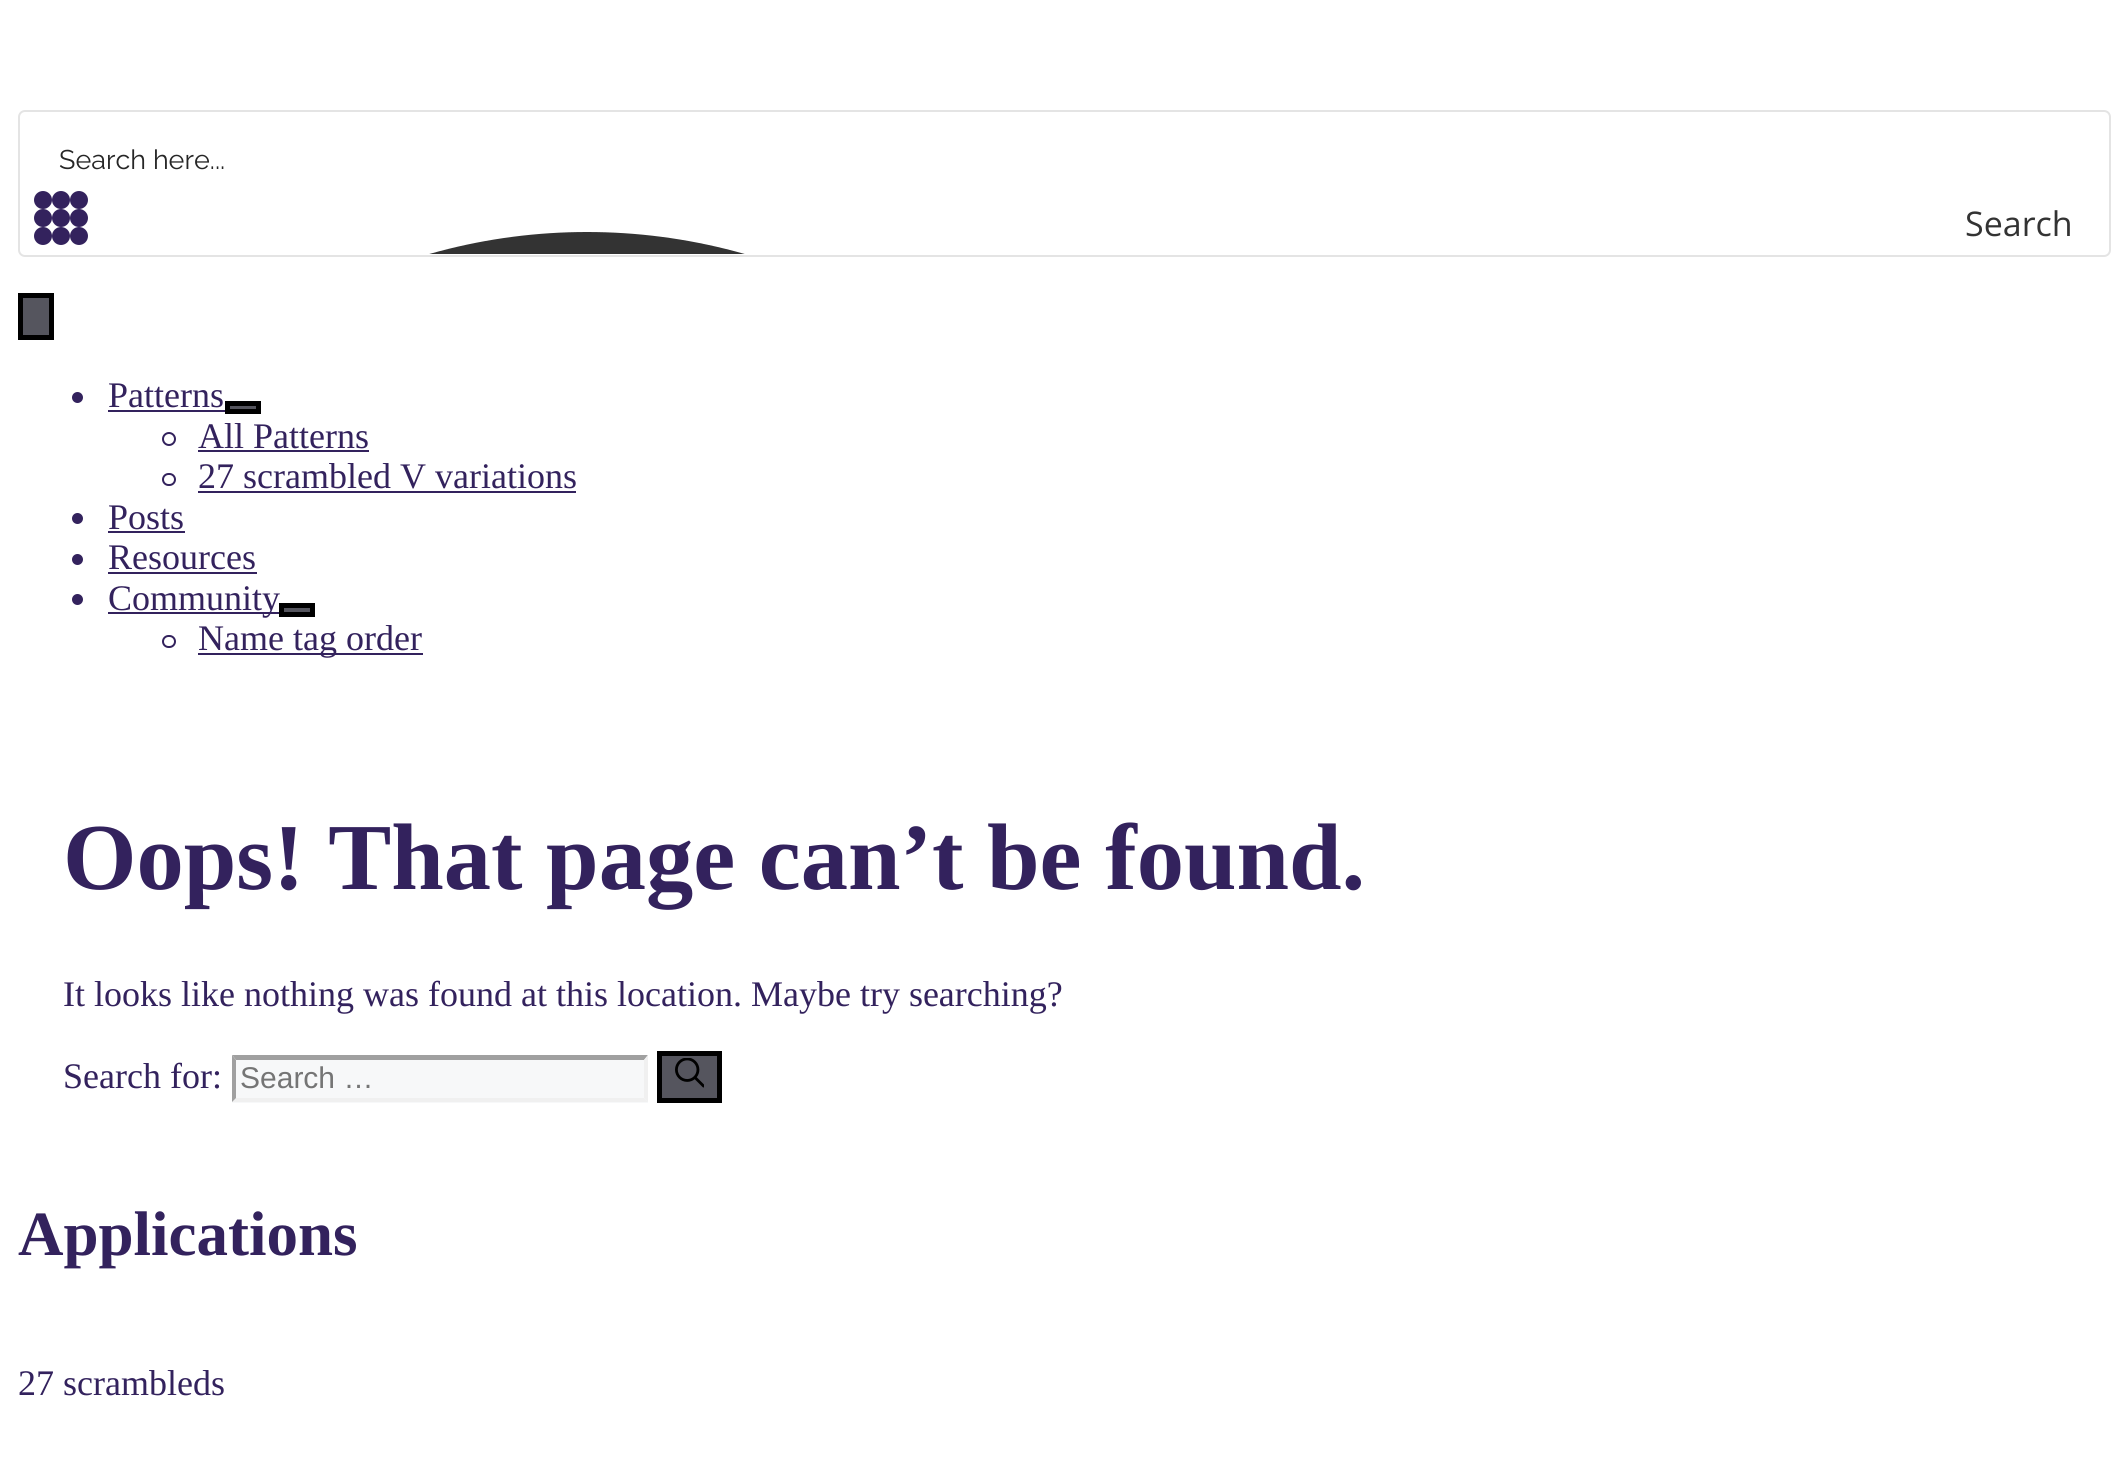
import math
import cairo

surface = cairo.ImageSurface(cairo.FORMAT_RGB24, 2128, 1457)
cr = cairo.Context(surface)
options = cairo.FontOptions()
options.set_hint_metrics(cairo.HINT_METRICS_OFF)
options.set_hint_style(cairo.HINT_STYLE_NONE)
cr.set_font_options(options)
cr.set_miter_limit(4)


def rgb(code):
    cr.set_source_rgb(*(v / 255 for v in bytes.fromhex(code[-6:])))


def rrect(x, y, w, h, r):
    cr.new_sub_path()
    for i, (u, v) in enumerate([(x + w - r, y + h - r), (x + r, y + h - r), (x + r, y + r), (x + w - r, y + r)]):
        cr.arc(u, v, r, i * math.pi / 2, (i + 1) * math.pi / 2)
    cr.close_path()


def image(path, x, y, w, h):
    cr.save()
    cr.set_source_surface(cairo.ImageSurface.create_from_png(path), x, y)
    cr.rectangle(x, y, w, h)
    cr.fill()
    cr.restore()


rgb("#ffffff")
cr.paint()
rrect(19, 111, 2091, 145, 6)
rgb("#e4e4e4")
cr.stroke()
rgb("#33225d")
cr.arc(43, 200, 9, 0, 2 * math.pi)
cr.fill()
cr.arc(61, 200, 9, 0, 2 * math.pi)
cr.fill()
cr.arc(79, 200, 9, 0, 2 * math.pi)
cr.fill()
cr.arc(43, 218, 9, 0, 2 * math.pi)
cr.fill()
cr.arc(61, 218, 9, 0, 2 * math.pi)
cr.fill()
cr.arc(79, 218, 9, 0, 2 * math.pi)
cr.fill()
rgb("#55555e")
cr.rectangle(20.5, 295.5, 31, 42)
cr.fill_preserve()
rgb("#000000")
cr.set_line_width(5)
cr.stroke()
rgb("#33225d")
cr.arc(77.5, 397.5, 5.5, 0, 2 * math.pi)
cr.fill()
cr.rectangle(108, 410, 117, 2)
cr.fill()
rgb("#55555e")
cr.rectangle(227.5, 403.5, 31, 8)
cr.fill_preserve()
rgb("#000000")
cr.stroke()
cr.arc(169, 439, 6, 0, 2 * math.pi)
rgb("#33225d")
cr.set_line_width(2)
cr.stroke()
cr.rectangle(198, 450, 171, 2)
cr.fill()
rrect(163, 474, 12, 11, 5.5)
cr.stroke()
cr.rectangle(198, 491, 378, 2)
cr.fill()
cr.arc(77.5, 518.5, 5.5, 0, 2 * math.pi)
cr.fill()
cr.rectangle(108, 531, 77, 2)
cr.fill()
cr.arc(77.5, 559.5, 5.5, 0, 2 * math.pi)
cr.fill()
cr.rectangle(108, 572, 149, 2)
cr.fill()
cr.arc(77.5, 599.5, 5.5, 0, 2 * math.pi)
cr.fill()
cr.rectangle(108, 612, 171, 2)
cr.fill()
rrect(163, 636, 12, 11, 5.5)
cr.stroke()
cr.rectangle(198, 653, 225, 2)
cr.fill()
rgb("#f7f8f9")
cr.rectangle(232, 1055, 416, 48)
cr.fill()
rgb("#a0a0a0")
cr.new_path()
cr.move_to(232, 1055)
cr.line_to(648, 1055)
cr.line_to(644, 1060)
cr.line_to(236, 1060)
cr.close_path()
cr.fill()
rgb("#f0f0f0")
cr.new_path()
cr.move_to(648, 1055)
cr.line_to(648, 1102)
cr.line_to(644, 1098)
cr.line_to(644, 1060)
cr.close_path()
cr.fill()
cr.new_path()
cr.move_to(648, 1102)
cr.line_to(232, 1102)
cr.line_to(236, 1098)
cr.line_to(644, 1098)
cr.close_path()
cr.fill()
rgb("#a0a0a0")
cr.new_path()
cr.move_to(232, 1102)
cr.line_to(232, 1055)
cr.line_to(236, 1060)
cr.line_to(236, 1098)
cr.close_path()
cr.fill()
rgb("#55555e")
cr.rectangle(659.5, 1053.5, 60, 47)
cr.fill_preserve()
rgb("#000000")
cr.set_line_width(5)
cr.stroke()
cr.select_font_face("Raleway Thin")
cr.set_font_size(27)
rgb("#262626")
cr.move_to(59, 169)
cr.show_text("Search here...")
cr.select_font_face("Open Sans")
cr.set_font_size(34)
rgb("#333333")
cr.move_to(1965, 236)
cr.show_text("Search")
cr.select_font_face("Liberation Serif")
cr.set_font_size(36)
rgb("#33225d")
for x, y, s in [
    (108, 407, "Patterns"),
    (198, 448, "All Patterns"),
    (198, 488, "27 scrambled V variations"),
    (108, 529, "Posts"),
    (108, 569, "Resources"),
    (108, 610, "Community"),
]:
    cr.move_to(x, y)
    cr.show_text(s)
rgb("#55555e")
cr.rectangle(281.5, 605.5, 31, 9)
cr.fill_preserve()
rgb("#000000")
cr.stroke()
rgb("#33225d")
cr.move_to(198, 650)
cr.show_text("Name tag order")
cr.select_font_face("Liberation Serif", cairo.FONT_SLANT_NORMAL, cairo.FONT_WEIGHT_BOLD)
cr.set_font_size(94.5)
cr.move_to(63, 889)
cr.show_text("Oops! That page can’t be found.")
cr.select_font_face("Liberation Serif")
cr.set_font_size(36)
cr.move_to(63, 1006)
cr.show_text("It looks like nothing was found at this location. Maybe try searching?")
cr.move_to(63, 1088)
cr.show_text("Search for:")
cr.select_font_face("Liberation Sans")
cr.set_font_size(30)
rgb("#757575")
cr.move_to(240, 1088)
cr.show_text("Search …")
cr.select_font_face("Liberation Serif", cairo.FONT_SLANT_NORMAL, cairo.FONT_WEIGHT_BOLD)
cr.set_font_size(63)
rgb("#33225d")
cr.move_to(18, 1255)
cr.show_text("Applications")
cr.select_font_face("Liberation Serif")
cr.set_font_size(36)
cr.move_to(18, 1395)
cr.show_text("27 scrambleds")
cr.save()
rrect(20, 113, 2088, 141, 5)
cr.clip()
rgb("#333333")
cr.arc(587, 808, 576, 0, 2 * math.pi)
cr.fill()
cr.restore()
cr.arc(79, 236, 9, 0, 2 * math.pi)
cr.fill()
cr.arc(61, 236, 9, 0, 2 * math.pi)
cr.fill()
cr.arc(43, 236, 9, 0, 2 * math.pi)
cr.fill()
image("img/1.png", 675, 1058, 29, 30)
surface.write_to_png("page.png")
